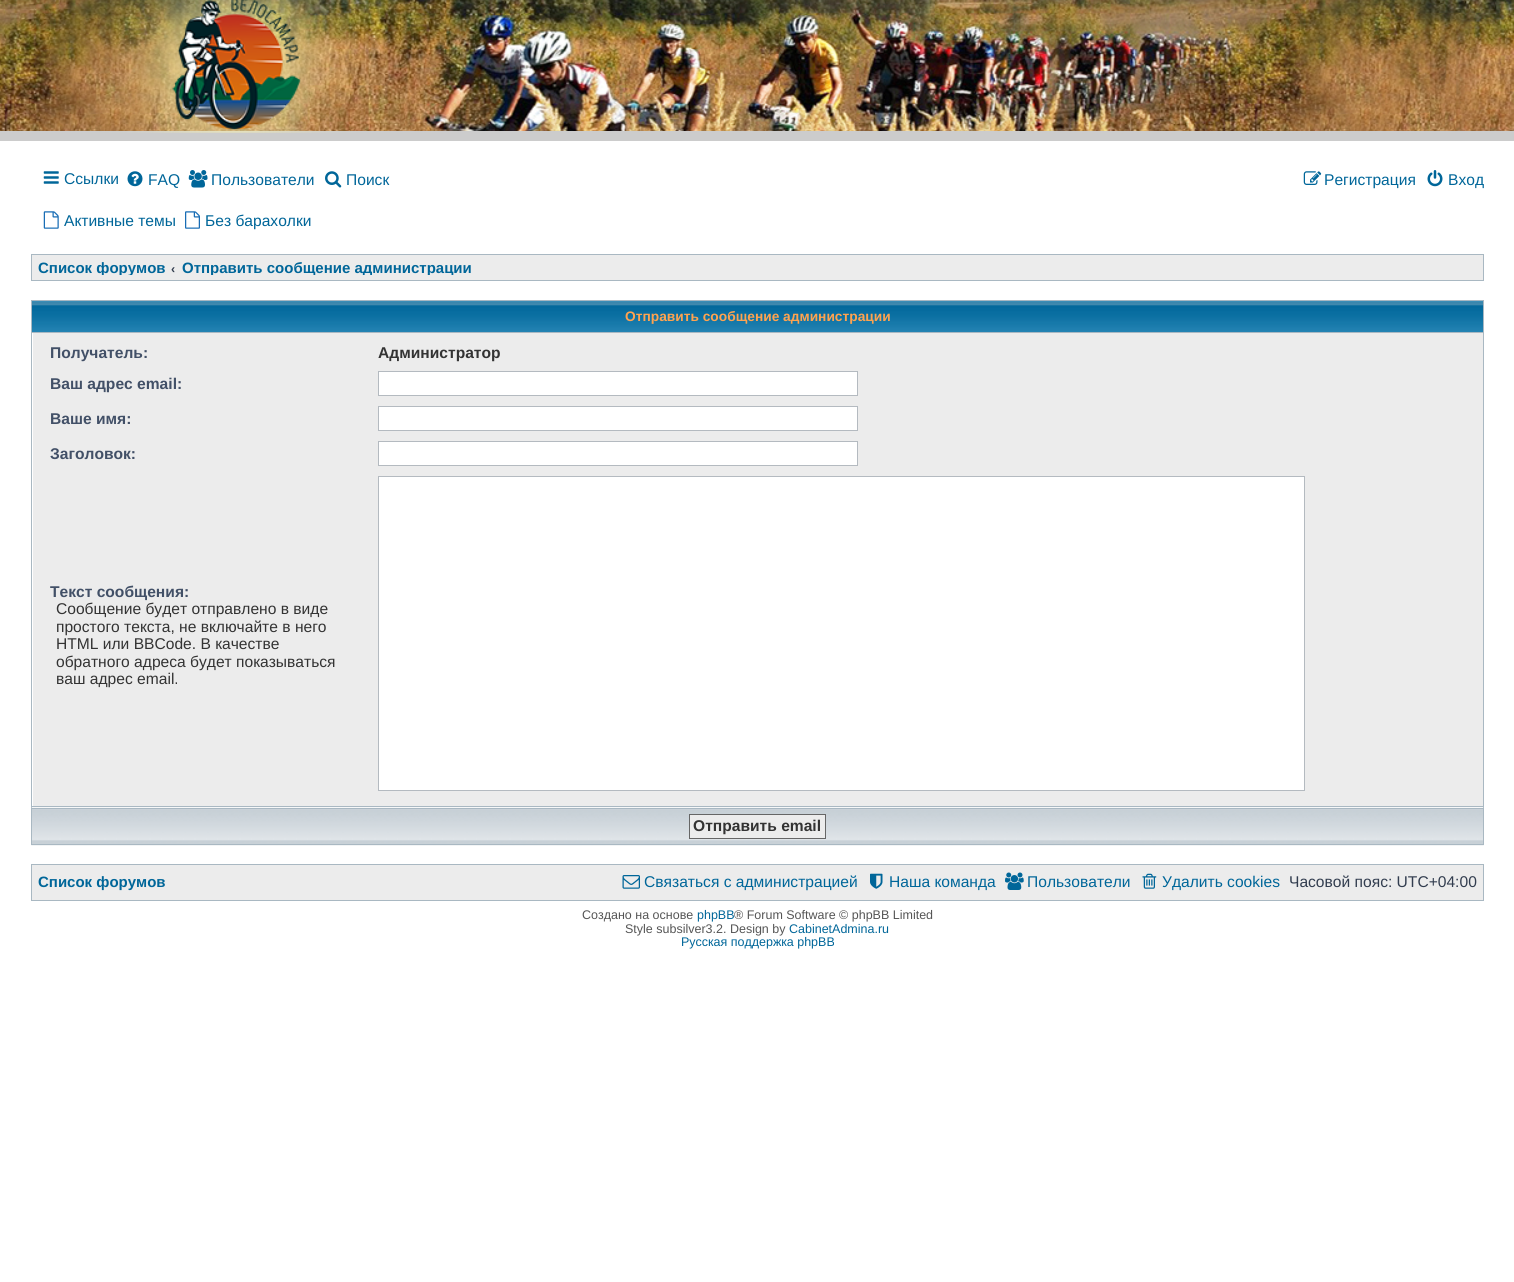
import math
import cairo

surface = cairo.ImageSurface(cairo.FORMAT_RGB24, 1514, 1282)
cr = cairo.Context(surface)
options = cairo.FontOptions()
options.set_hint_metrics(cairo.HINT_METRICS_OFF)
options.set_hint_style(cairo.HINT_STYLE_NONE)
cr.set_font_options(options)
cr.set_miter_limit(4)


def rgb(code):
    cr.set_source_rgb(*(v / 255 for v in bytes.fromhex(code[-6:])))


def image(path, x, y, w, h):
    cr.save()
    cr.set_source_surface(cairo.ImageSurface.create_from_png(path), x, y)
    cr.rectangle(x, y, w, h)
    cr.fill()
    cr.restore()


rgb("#ffffff")
cr.paint()
image("img/1.png", 0, 0, 1514, 131)
rgb("#cccccc")
cr.rectangle(0, 131, 1514, 10)
cr.fill()
image("img/2.png", 99, 0, 267, 133)
image("img/3.png", 43, 171, 16, 13)
image("img/4.png", 127, 171, 16, 16)
image("img/5.png", 188, 170, 20, 18)
image("img/6.png", 325, 171, 17, 17)
image("img/7.png", 1303, 171, 19, 14)
image("img/8.png", 1427, 170, 16, 17)
image("img/9.png", 43, 211, 16, 18)
image("img/10.png", 185, 211, 15, 18)
rgb("#ececec")
cr.rectangle(31.5, 254.5, 1452, 26)
cr.fill_preserve()
rgb("#a9b8c2")
cr.set_line_width(1)
cr.stroke()
image("img/11.png", 32, 301, 1451, 31)
cr.rectangle(31.5, 300.5, 1452, 32)
cr.stroke()
for x, y, w, h, color in [
    (33, 333, 1450, 473, "#ececec"),
    (1483, 333, 1, 475, "#a9b8c2"),
    (31, 806, 1453, 1, "#a9b8c2"),
    (31, 333, 1, 475, "#a9b8c2"),
]:
    rgb(color)
    cr.rectangle(x, y, w, h)
    cr.fill()
rgb("#ffffff")
cr.rectangle(378.5, 371.5, 479, 24)
cr.fill_preserve()
rgb("#b4bac0")
cr.stroke()
rgb("#ffffff")
cr.rectangle(378.5, 406.5, 479, 24)
cr.fill_preserve()
rgb("#b4bac0")
cr.stroke()
rgb("#ffffff")
cr.rectangle(378.5, 441.5, 479, 24)
cr.fill_preserve()
rgb("#b4bac0")
cr.stroke()
rgb("#ffffff")
cr.rectangle(378.5, 476.5, 926, 314)
cr.fill_preserve()
rgb("#b4bac0")
cr.stroke()
image("img/12.png", 31, 807, 1453, 39)
cr.rectangle(31.5, 808.5, 1452, 36)
rgb("#a9b8c2")
cr.stroke()
rgb("#ececec")
cr.rectangle(689.5, 814.5, 136, 24)
cr.fill_preserve()
rgb("#666666")
cr.stroke()
rgb("#ececec")
cr.rectangle(31.5, 864.5, 1452, 36)
cr.fill_preserve()
rgb("#a9b8c2")
cr.stroke()
image("img/13.png", 622, 875, 18, 14)
image("img/14.png", 870, 873, 13, 16)
image("img/15.png", 1005, 872, 19, 18)
image("img/16.png", 1142, 873, 15, 16)
cr.select_font_face("Liberation Sans")
cr.set_font_size(15.6)
rgb("#006699")
for x, y, s in [
    (64, 184, "Ссылки"),
    (148, 185, "FAQ"),
    (211, 185, "Пользователи"),
    (346, 185, "Поиск"),
    (1324, 185, "Регистрация"),
    (1448, 185, "Вход"),
    (64, 226, "Активные темы"),
    (205, 226, "Без барахолки"),
]:
    cr.move_to(x, y)
    cr.show_text(s)
cr.save()
cr.rectangle(38, 261, 127, 14)
cr.clip()
cr.select_font_face("Liberation Sans", cairo.FONT_SLANT_NORMAL, cairo.FONT_WEIGHT_BOLD)
cr.set_font_size(15)
cr.move_to(38, 273)
cr.show_text("Список форумов")
cr.restore()
cr.select_font_face("Liberation Sans", cairo.FONT_SLANT_NORMAL, cairo.FONT_WEIGHT_BOLD)
cr.set_font_size(12.5)
rgb("#323d4f")
cr.move_to(171, 273)
cr.show_text("‹")
cr.save()
cr.rectangle(181, 261, 290, 14)
cr.clip()
cr.set_font_size(15)
rgb("#006699")
cr.move_to(182, 273)
cr.show_text("Отправить сообщение администрации")
cr.restore()
cr.set_font_size(13.75)
rgb("#ffa34f")
cr.move_to(625, 321)
cr.show_text("Отправить сообщение администрации")
cr.set_font_size(15.6)
rgb("#425067")
cr.move_to(50, 358)
cr.show_text("Получатель:")
rgb("#333333")
cr.move_to(378, 358)
cr.show_text("Администратор")
rgb("#425067")
for x, y, s in [
    (50, 389, "Ваш адрес email:"),
    (50, 424, "Ваше имя:"),
    (50, 459, "Заголовок:"),
    (50, 597, "Текст сообщения:"),
]:
    cr.move_to(x, y)
    cr.show_text(s)
cr.select_font_face("Liberation Sans")
rgb("#333333")
for x, y, s in [
    (56, 614, "Сообщение будет отправлено в виде"),
    (56, 632, "простого текста, не включайте в него"),
    (56, 649, "HTML или BBCode. В качестве"),
    (56, 667, "обратного адреса будет показываться"),
    (56, 684, "ваш адрес email."),
]:
    cr.move_to(x, y)
    cr.show_text(s)
cr.select_font_face("Liberation Sans", cairo.FONT_SLANT_NORMAL, cairo.FONT_WEIGHT_BOLD)
cr.move_to(693, 831)
cr.show_text("Отправить email")
cr.set_font_size(15)
rgb("#006699")
cr.move_to(38, 887)
cr.show_text("Список форумов")
cr.select_font_face("Liberation Sans")
cr.set_font_size(15.6)
for x, y, s in [
    (644, 887, "Связаться с администрацией"),
    (889, 887, "Наша команда"),
    (1027, 887, "Пользователи"),
    (1162, 887, "Удалить cookies"),
]:
    cr.move_to(x, y)
    cr.show_text(s)
rgb("#323d4f")
cr.move_to(1289, 887)
cr.show_text("Часовой пояс: UTC+04:00")
cr.set_font_size(12.5)
rgb("#555555")
cr.move_to(582, 919)
cr.show_text("Создано на основе")
rgb("#006699")
cr.move_to(697, 919)
cr.show_text("phpBB")
rgb("#555555")
cr.move_to(734, 919)
cr.show_text("® Forum Software © phpBB Limited")
cr.move_to(625, 933)
cr.show_text("Style subsilver3.2. Design by")
rgb("#006699")
cr.move_to(789, 933)
cr.show_text("CabinetAdmina.ru")
cr.move_to(681, 946)
cr.show_text("Русская поддержка phpBB")
surface.write_to_png("page.png")
